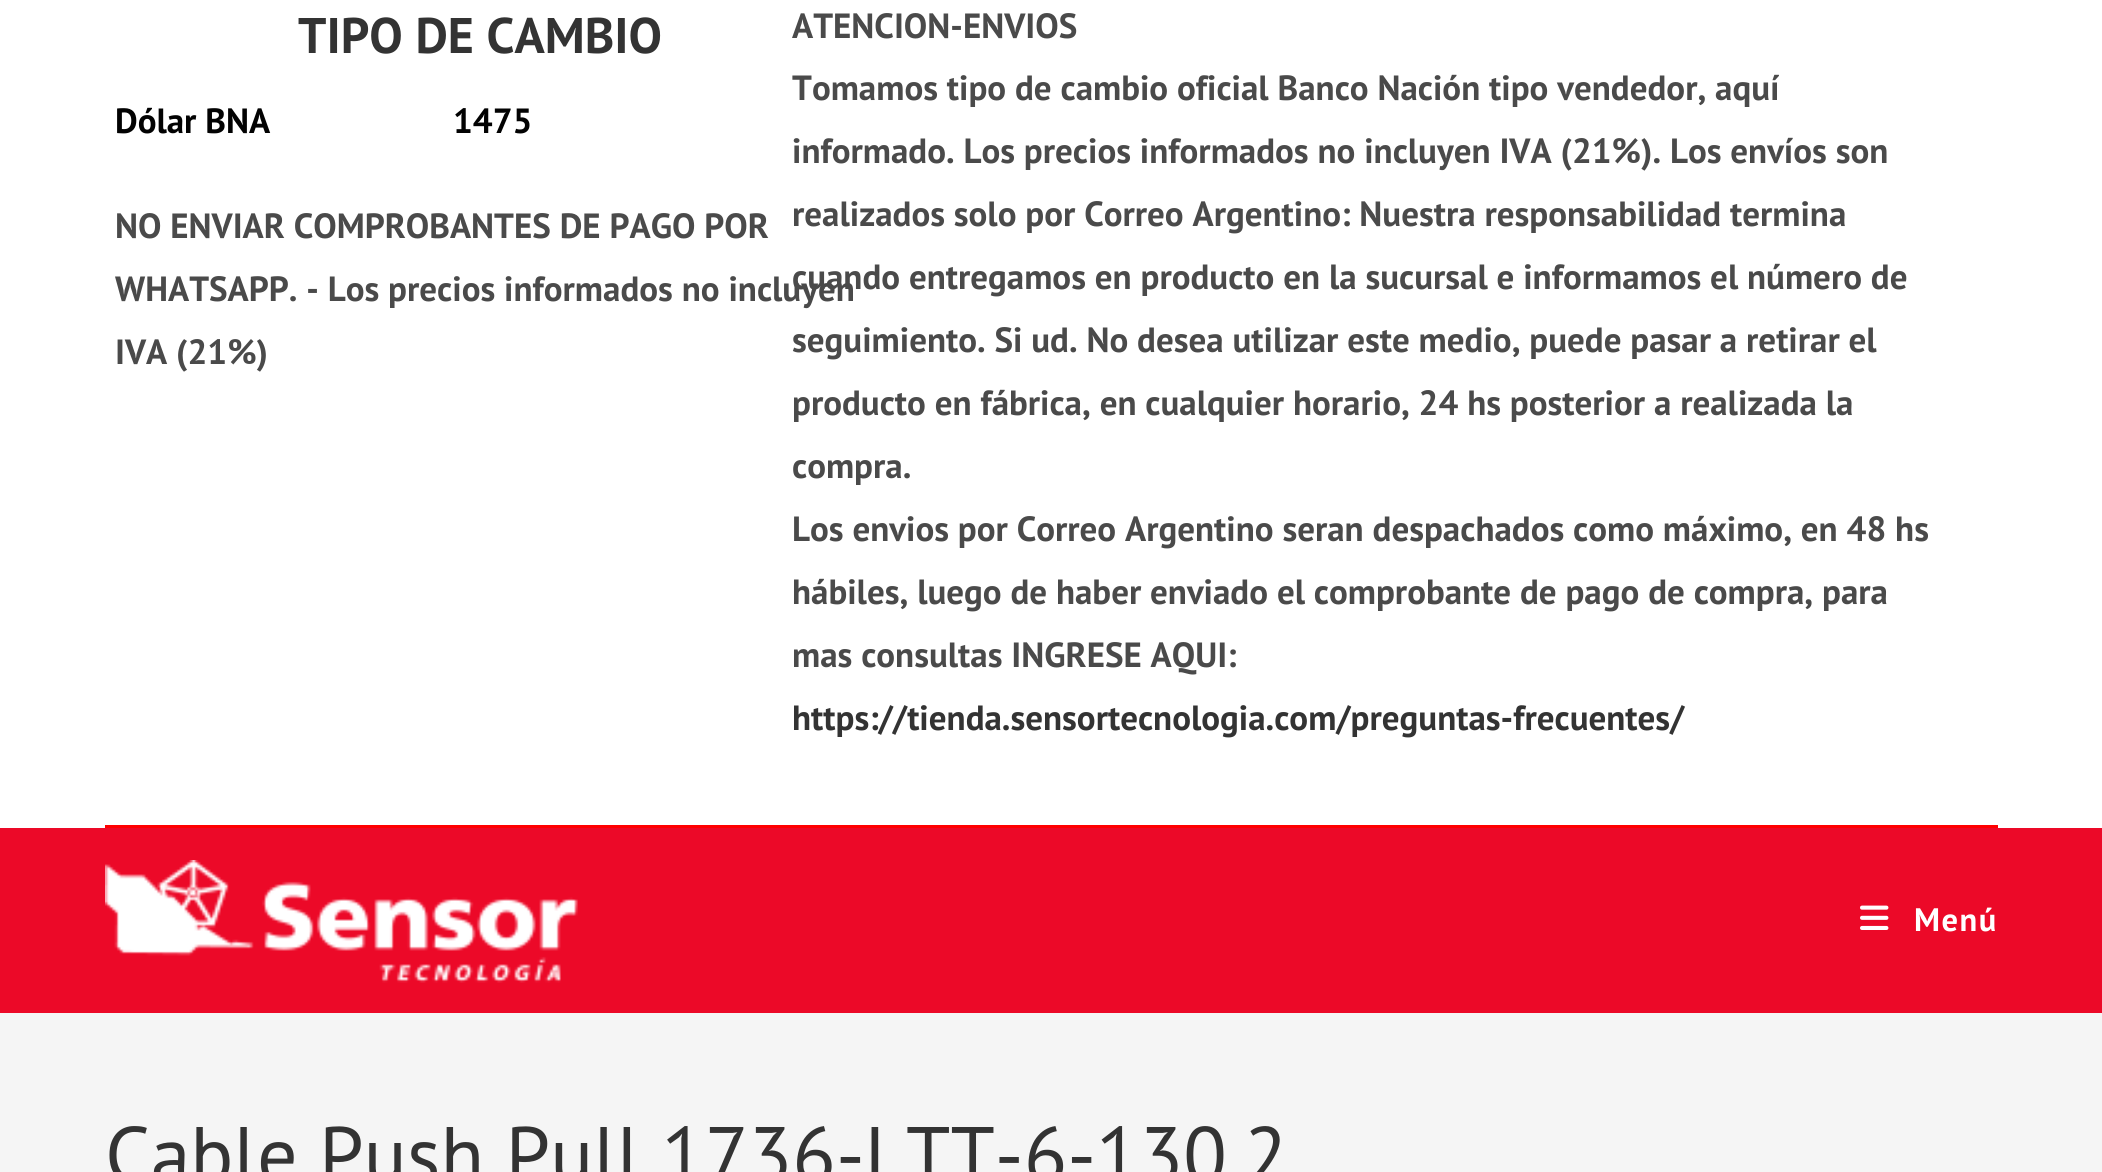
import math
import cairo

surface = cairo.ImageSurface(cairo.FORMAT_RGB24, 2102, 1172)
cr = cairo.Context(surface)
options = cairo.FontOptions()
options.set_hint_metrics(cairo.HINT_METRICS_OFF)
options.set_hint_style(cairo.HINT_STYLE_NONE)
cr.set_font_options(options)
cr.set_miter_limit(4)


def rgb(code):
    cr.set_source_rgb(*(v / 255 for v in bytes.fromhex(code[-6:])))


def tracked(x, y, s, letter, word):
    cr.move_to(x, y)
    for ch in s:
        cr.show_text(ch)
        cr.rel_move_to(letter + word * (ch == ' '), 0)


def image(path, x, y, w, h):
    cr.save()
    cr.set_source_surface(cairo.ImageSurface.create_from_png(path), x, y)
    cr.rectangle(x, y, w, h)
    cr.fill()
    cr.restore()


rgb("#ffffff")
cr.paint()
rgb("#ff0000")
cr.rectangle(105, 825, 1893, 3)
cr.fill()
rgb("#ec0928")
cr.rectangle(0, 828, 2102, 185)
cr.fill()
image("img/1.png", 105, 860, 473, 123)
image("img/2.png", 1860, 905, 29, 25)
rgb("#f5f5f5")
cr.rectangle(0, 1013, 2102, 159)
cr.fill()
cr.select_font_face("PT Sans", cairo.FONT_SLANT_NORMAL, cairo.FONT_WEIGHT_BOLD)
cr.set_font_size(50)
rgb("#333333")
cr.move_to(298, 53)
cr.show_text("TIPO DE CAMBIO")
cr.set_font_size(35)
rgb("#020202")
cr.move_to(115, 133)
cr.show_text("Dólar BNA")
cr.move_to(453, 133)
cr.show_text("1475")
rgb("#4a4a4a")
for x, y, s in [
    (115, 238, "NO ENVIAR COMPROBANTES DE PAGO POR"),
    (115, 301, "WHATSAPP. - Los precios informados no incluyen"),
    (115, 364, "IVA (21%)"),
    (792, 38, "ATENCION-ENVIOS"),
    (792, 100, "Tomamos tipo de cambio oficial Banco Nación tipo vendedor, aquí"),
    (792, 163, "informado. Los precios informados no incluyen IVA (21%). Los envíos son"),
    (792, 226, "realizados solo por Correo Argentino: Nuestra responsabilidad termina"),
    (792, 289, "cuando entregamos en producto en la sucursal e informamos el número de"),
    (792, 352, "seguimiento. Si ud. No desea utilizar este medio, puede pasar a retirar el"),
    (792, 415, "producto en fábrica, en cualquier horario, 24 hs posterior a realizada la"),
    (792, 478, "compra."),
    (792, 541, "Los envios por Correo Argentino seran despachados como máximo, en 48 hs"),
    (792, 604, "hábiles, luego de haber enviado el comprobante de pago de compra, para"),
    (792, 667, "mas consultas INGRESE AQUI:"),
]:
    cr.move_to(x, y)
    cr.show_text(s)
rgb("#333333")
cr.move_to(792, 730)
cr.show_text("https://tienda.sensortecnologia.com/preguntas-frecuentes/")
cr.set_font_size(32.5)
rgb("#ffffff")
tracked(1914, 931, "Menú", 1.5, 0)
cr.select_font_face("PT Sans")
cr.set_font_size(80)
rgb("#333333")
cr.move_to(105, 1183)
cr.show_text("Cable Push Pull 1736-LTT-6-130.2")
surface.write_to_png("page.png")
